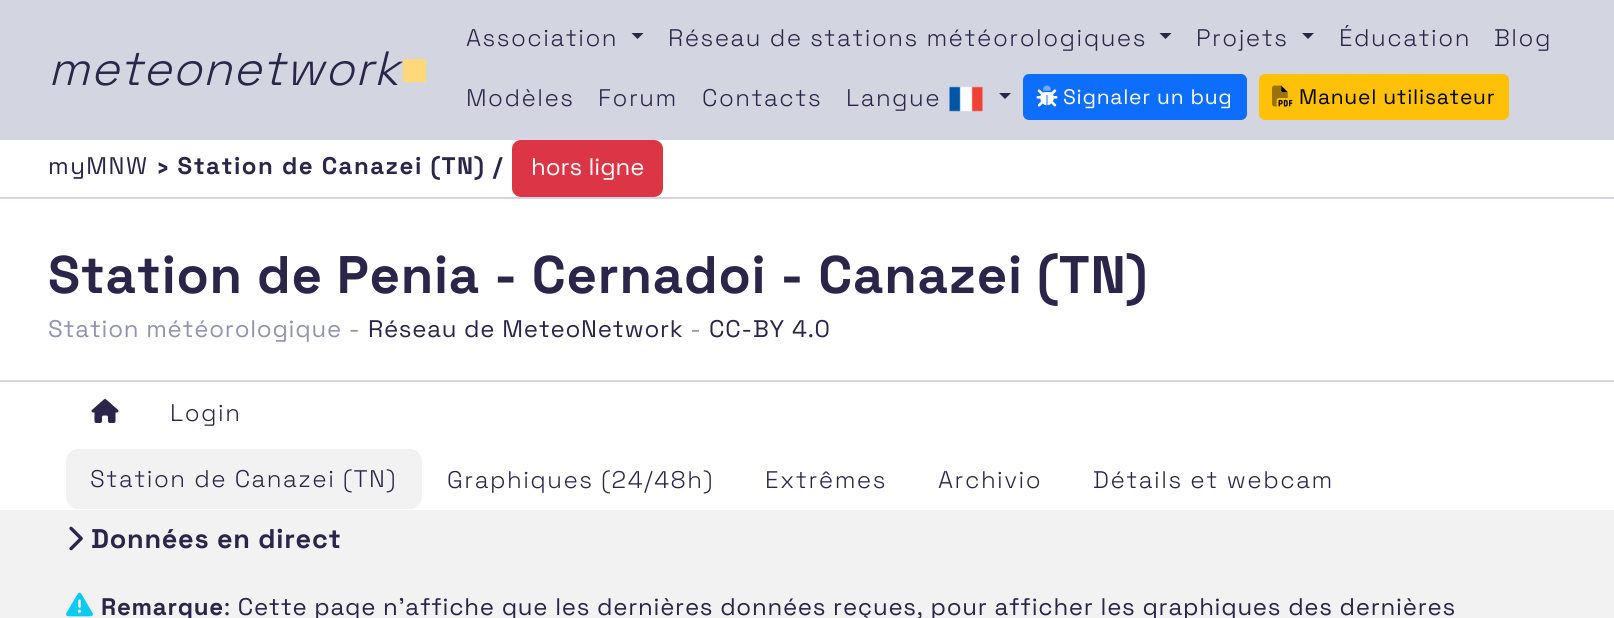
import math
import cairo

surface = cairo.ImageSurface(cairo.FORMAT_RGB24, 1614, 618)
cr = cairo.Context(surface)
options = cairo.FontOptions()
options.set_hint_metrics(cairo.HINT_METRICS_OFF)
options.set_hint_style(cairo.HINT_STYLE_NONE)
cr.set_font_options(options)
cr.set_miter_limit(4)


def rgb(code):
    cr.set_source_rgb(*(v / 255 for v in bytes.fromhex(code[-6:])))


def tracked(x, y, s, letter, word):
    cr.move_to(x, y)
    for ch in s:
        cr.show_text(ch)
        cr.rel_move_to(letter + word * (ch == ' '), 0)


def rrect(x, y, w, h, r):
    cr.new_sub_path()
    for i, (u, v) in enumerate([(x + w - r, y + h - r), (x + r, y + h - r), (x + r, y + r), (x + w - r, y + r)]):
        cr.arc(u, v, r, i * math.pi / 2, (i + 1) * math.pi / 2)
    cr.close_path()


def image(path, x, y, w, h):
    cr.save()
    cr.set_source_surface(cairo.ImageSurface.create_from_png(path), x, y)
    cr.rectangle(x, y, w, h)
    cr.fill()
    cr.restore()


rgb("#ffffff")
cr.paint()
rgb("#d3d5e0")
cr.rectangle(0, 0, 1614, 140)
cr.fill()
rgb("#2a2549")
cr.new_path()
cr.move_to(631.5, 33)
cr.line_to(643.5, 33)
cr.line_to(637.5, 39)
cr.close_path()
cr.fill()
cr.new_path()
cr.move_to(1159.5, 33)
cr.line_to(1171.5, 33)
cr.line_to(1165.5, 39)
cr.close_path()
cr.fill()
cr.new_path()
cr.move_to(1302, 33)
cr.line_to(1314, 33)
cr.line_to(1308, 39)
cr.close_path()
cr.fill()
image("img/1.png", 949, 86, 34, 26)
cr.new_path()
cr.move_to(999, 93)
cr.line_to(1011, 93)
cr.line_to(1005, 99)
cr.close_path()
cr.fill()
rgb("#0d6efd")
rrect(1024, 75, 222, 44, 5)
cr.fill_preserve()
cr.stroke()
image("img/2.png", 1036, 85, 22, 22)
rgb("#ffc107")
rrect(1260, 75, 248, 44, 5)
cr.fill_preserve()
cr.stroke()
image("img/3.png", 1272, 85, 21, 22)
rgb("#d3d5e0")
cr.rectangle(0, 197, 1614, 2)
cr.fill()
rgb("#dc3545")
rrect(513, 141, 149, 55, 8)
cr.fill_preserve()
cr.stroke()
rgb("#d3d5e0")
cr.rectangle(0, 380, 1614, 2)
cr.fill()
image("img/4.png", 91, 399, 28, 24)
rgb("#f2f2f2")
rrect(66, 449, 356, 60, 12)
cr.fill()
cr.rectangle(0, 510, 1614, 108)
cr.fill()
image("img/5.png", 69, 526, 14, 25)
image("img/6.png", 66, 592, 27, 25)
cr.select_font_face("Space Grotesk Light", cairo.FONT_SLANT_ITALIC)
cr.set_font_size(48)
rgb("#2a2549")
tracked(48, 85, "meteonetwork", 0.75, 0)
cr.select_font_face("Liberation Sans", cairo.FONT_SLANT_ITALIC)
rgb("#fed97c")
tracked(400, 85, "■", 0.75, 0)
cr.select_font_face("Space Grotesk Light")
cr.set_font_size(24)
rgb("#2a2549")
for x, y, s in [
    (466, 46, "Association"),
    (668, 46, "Réseau de stations météorologiques"),
    (1196, 46, "Projets"),
    (1339, 46, "Éducation"),
    (1494, 46, "Blog"),
    (466, 106, "Modèles"),
    (598, 106, "Forum"),
    (702, 106, "Contacts"),
    (846, 106, "Langue"),
]:
    tracked(x, y, s, 1.5, 0)
cr.select_font_face("Space Grotesk")
cr.set_font_size(21)
rgb("#ffffff")
tracked(1063, 104, "Signaler un bug", 0.75, 0)
rgb("#000000")
tracked(1299, 104, "Manuel utilisateur", 0.75, 0)
cr.set_font_size(24)
rgb("#2a2549")
tracked(48, 174, "myMNW", 1.5, 0)
cr.select_font_face("Space Grotesk", cairo.FONT_SLANT_NORMAL, cairo.FONT_WEIGHT_BOLD)
tracked(157, 174, "› Station de Canazei (TN) /", 1.5, 0)
cr.select_font_face("Space Grotesk")
rgb("#ffffff")
cr.move_to(531, 175)
cr.show_text("hors ligne")
cr.select_font_face("Space Grotesk", cairo.FONT_SLANT_NORMAL, cairo.FONT_WEIGHT_BOLD)
cr.set_font_size(52.8)
rgb("#2a2549")
tracked(48, 293, "Station de Penia - Cernadoi - Canazei (TN)", 0.75, 0)
cr.select_font_face("Space Grotesk")
cr.set_font_size(24)
rgb("#9193b1")
tracked(48, 337, "Station météorologique -", 0.75, 0)
rgb("#2a2549")
tracked(368, 337, "Réseau de MeteoNetwork", 0.75, 0)
rgb("#9193b1")
tracked(690, 337, "-", 0.75, 0)
rgb("#2a2549")
tracked(709, 337, "CC-BY 4.0", 0.75, 0)
cr.select_font_face("Space Grotesk Light")
for x, y, s in [
    (170, 421, "Login"),
    (90, 487, "Station de Canazei (TN)"),
    (447, 488, "Graphiques (24/48h)"),
    (765, 488, "Extrêmes"),
    (938, 488, "Archivio"),
    (1093, 488, "Détails et webcam"),
]:
    tracked(x, y, s, 1.5, 0)
cr.select_font_face("Space Grotesk", cairo.FONT_SLANT_NORMAL, cairo.FONT_WEIGHT_BOLD)
cr.set_font_size(27)
tracked(91, 548, "Données en direct", 0.75, 0)
cr.set_font_size(24)
tracked(101, 615, "Remarque", 0.75, 0)
cr.select_font_face("Space Grotesk")
tracked(224, 615, ": Cette page n'affiche que les dernières données reçues, pour afficher les graphiques des dernières", 0.75, 0)
surface.write_to_png("page.png")
